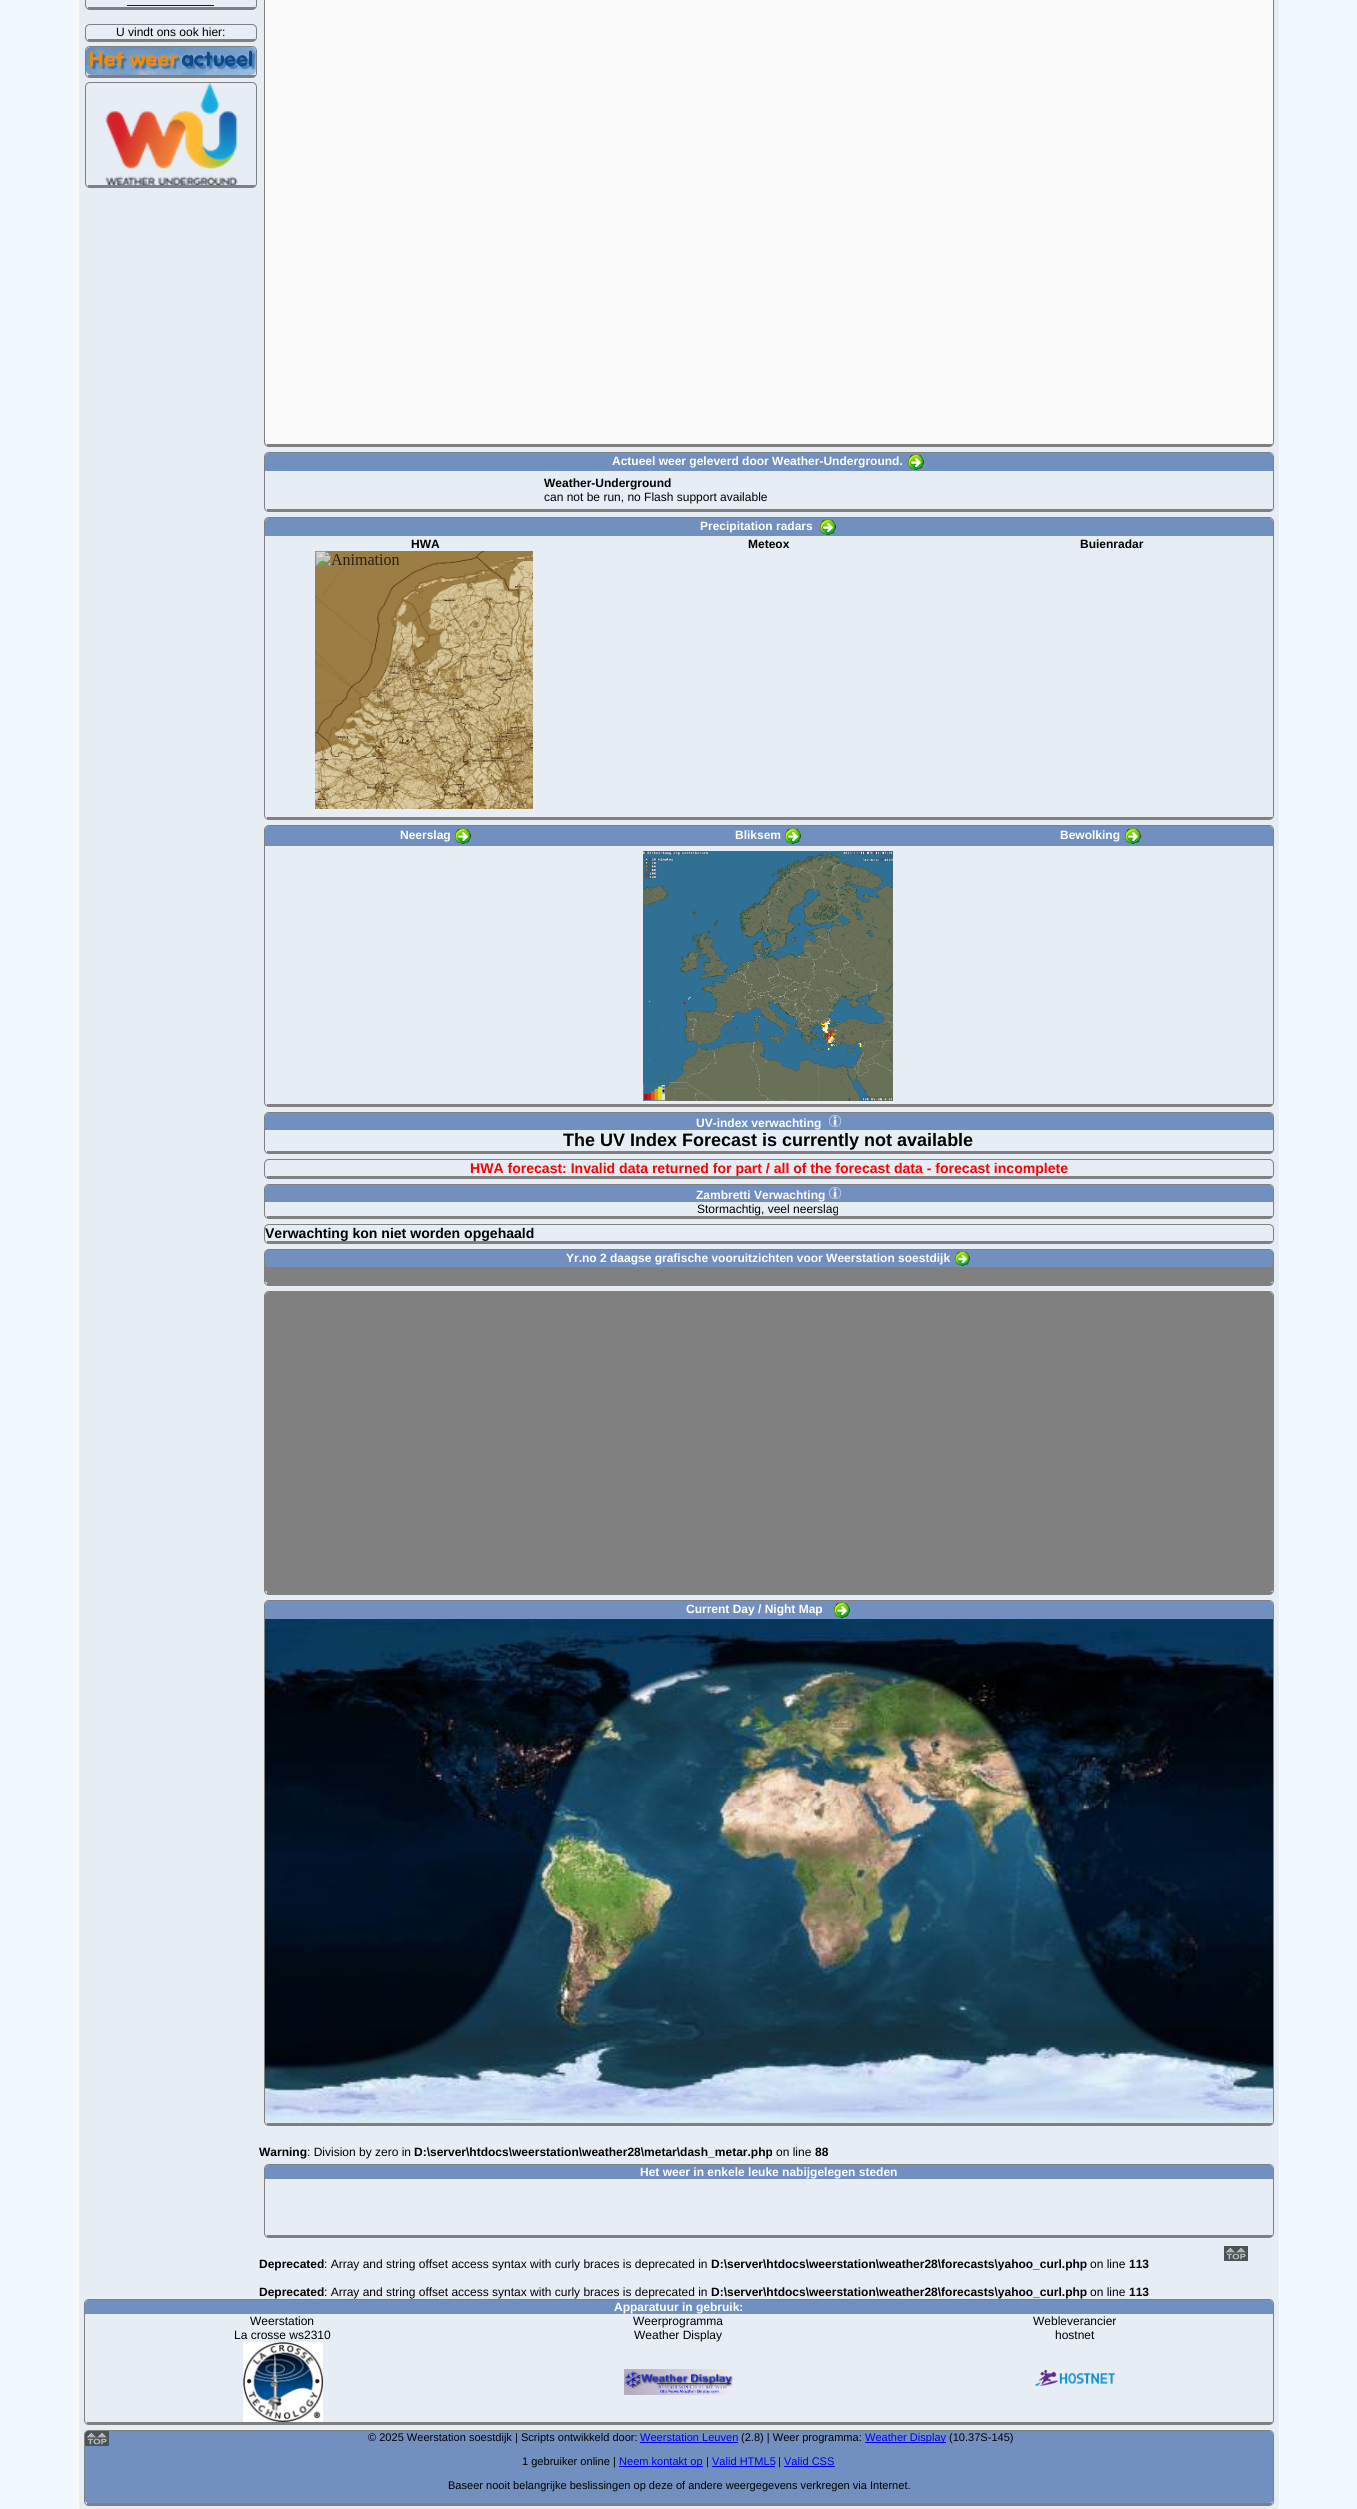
import math
import cairo

surface = cairo.ImageSurface(cairo.FORMAT_RGB24, 1357, 2509)
cr = cairo.Context(surface)
options = cairo.FontOptions()
options.set_hint_metrics(cairo.HINT_METRICS_OFF)
options.set_hint_style(cairo.HINT_STYLE_NONE)
cr.set_font_options(options)
cr.set_miter_limit(4)


def rgb(code):
    cr.set_source_rgb(*(v / 255 for v in bytes.fromhex(code[-6:])))


def rrect(x, y, w, h, r):
    cr.new_sub_path()
    for i, (u, v) in enumerate([(x + w - r, y + h - r), (x + r, y + h - r), (x + r, y + r), (x + w - r, y + r)]):
        cr.arc(u, v, r, i * math.pi / 2, (i + 1) * math.pi / 2)
    cr.close_path()


def image(path, x, y, w, h):
    cr.save()
    cr.set_source_surface(cairo.ImageSurface.create_from_png(path), x, y)
    cr.rectangle(x, y, w, h)
    cr.fill()
    cr.restore()


rgb("#f1f8fe")
cr.paint()
rgb("#e6edf5")
rrect(78.5, -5.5, 1201, 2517, 4.5)
cr.fill_preserve()
rgb("#fdfbeb")
cr.set_line_width(1)
cr.stroke()
rrect(85.5, -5.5, 171, 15, 4.5)
rgb("#808080")
cr.stroke()
cr.rectangle(88, 7, 167, 2)
cr.fill()
rgb("#0000ee")
cr.rectangle(127, 5, 87, 1)
cr.fill()
rrect(85.5, 24.5, 171, 17, 4.5)
rgb("#808080")
cr.stroke()
cr.rectangle(88, 39, 167, 2)
cr.fill()
rrect(85.5, 46.5, 171, 31, 4.5)
cr.stroke()
cr.rectangle(88, 75, 167, 2)
cr.fill()
image("img/1.png", 86, 47, 170, 28)
rrect(85.5, 82.5, 171, 105, 4.5)
cr.stroke()
cr.rectangle(88, 185, 167, 2)
cr.fill()
image("img/2.png", 105, 83, 133, 102)
rrect(264.5, -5.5, 1009, 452, 4.5)
cr.stroke()
cr.rectangle(267, 444, 1005, 2)
cr.fill()
rgb("#fafafa")
cr.new_path()
cr.move_to(265, -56)
cr.line_to(265, 442)
cr.curve_to(265, 443, 267, 444, 269, 444)
cr.line_to(1269, 444)
cr.curve_to(1271, 444, 1273, 443, 1273, 442)
cr.line_to(1273, -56)
cr.close_path()
cr.fill()
rrect(264.5, 452.5, 1009, 59, 4.5)
rgb("#808080")
cr.stroke()
cr.rectangle(267, 509, 1005, 2)
cr.fill()
rgb("#7190bf")
cr.new_path()
cr.move_to(269, 453)
cr.curve_to(267, 453, 265, 455, 265, 457)
cr.line_to(265, 471)
cr.line_to(1273, 471)
cr.line_to(1273, 457)
cr.curve_to(1273, 455, 1271, 453, 1269, 453)
cr.close_path()
cr.fill()
image("img/3.png", 908, 454, 16, 16)
rrect(264.5, 517.5, 1009, 302, 4.5)
rgb("#808080")
cr.stroke()
cr.rectangle(267, 817, 1005, 2)
cr.fill()
rgb("#7190bf")
cr.new_path()
cr.move_to(269, 518)
cr.curve_to(267, 518, 265, 520, 265, 522)
cr.line_to(265, 536)
cr.line_to(1273, 536)
cr.line_to(1273, 522)
cr.curve_to(1273, 520, 1271, 518, 1269, 518)
cr.close_path()
cr.fill()
image("img/3.png", 820, 519, 16, 16)
image("img/4.png", 315, 551, 218, 258)
rrect(264.5, 825.5, 1009, 281, 4.5)
rgb("#808080")
cr.stroke()
cr.rectangle(267, 1104, 1005, 2)
cr.fill()
rgb("#7190bf")
cr.new_path()
cr.move_to(269, 826)
cr.curve_to(267, 826, 265, 828, 265, 830)
cr.line_to(265, 846)
cr.line_to(1273, 846)
cr.line_to(1273, 830)
cr.curve_to(1273, 828, 1271, 826, 1269, 826)
cr.close_path()
cr.fill()
image("img/3.png", 455, 828, 16, 16)
image("img/3.png", 785, 828, 16, 16)
image("img/3.png", 1125, 828, 16, 16)
image("img/5.png", 643, 851, 250, 250)
rrect(264.5, 1112.5, 1009, 41, 4.5)
rgb("#808080")
cr.stroke()
cr.rectangle(267, 1151, 1005, 2)
cr.fill()
rgb("#7190bf")
cr.new_path()
cr.move_to(269, 1113)
cr.curve_to(267, 1113, 265, 1115, 265, 1117)
cr.line_to(265, 1130)
cr.line_to(1273, 1130)
cr.line_to(1273, 1117)
cr.curve_to(1273, 1115, 1271, 1113, 1269, 1113)
cr.close_path()
cr.fill()
image("img/6.png", 829, 1115, 12, 12)
rrect(264.5, 1159.5, 1009, 19, 4.5)
rgb("#808080")
cr.stroke()
cr.rectangle(267, 1176, 1005, 2)
cr.fill()
rrect(264.5, 1184.5, 1009, 34, 4.5)
cr.stroke()
cr.rectangle(267, 1216, 1005, 2)
cr.fill()
rgb("#7190bf")
cr.new_path()
cr.move_to(269, 1185)
cr.curve_to(267, 1185, 265, 1187, 265, 1189)
cr.line_to(265, 1202)
cr.line_to(1273, 1202)
cr.line_to(1273, 1189)
cr.curve_to(1273, 1187, 1271, 1185, 1269, 1185)
cr.close_path()
cr.fill()
image("img/6.png", 829, 1187, 12, 12)
rrect(264.5, 1224.5, 1009, 19, 4.5)
rgb("#808080")
cr.stroke()
cr.rectangle(267, 1241, 1005, 2)
cr.fill()
cr.new_path()
cr.move_to(269, 1250)
cr.line_to(1269, 1250)
cr.curve_to(1271, 1250, 1273, 1252, 1273, 1254)
cr.line_to(1273, 1281)
cr.curve_to(1273, 1282, 1271, 1283, 1269, 1283)
cr.line_to(269, 1283)
cr.curve_to(267, 1283, 265, 1282, 265, 1281)
cr.line_to(265, 1254)
cr.curve_to(265, 1252, 267, 1250, 269, 1250)
cr.close_path()
cr.fill()
rrect(264.5, 1249.5, 1009, 36, 4.5)
cr.stroke()
cr.rectangle(267, 1283, 1005, 2)
cr.fill()
rgb("#7190bf")
cr.new_path()
cr.move_to(269, 1250)
cr.curve_to(267, 1250, 265, 1252, 265, 1254)
cr.line_to(265, 1264)
cr.curve_to(265, 1266, 266, 1267, 268, 1267)
cr.line_to(1270, 1267)
cr.curve_to(1272, 1267, 1273, 1266, 1273, 1264)
cr.line_to(1273, 1254)
cr.curve_to(1273, 1252, 1271, 1250, 1269, 1250)
cr.close_path()
cr.fill()
image("img/7.png", 955, 1251, 15, 15)
rgb("#808080")
cr.new_path()
cr.move_to(269, 1292)
cr.line_to(1269, 1292)
cr.curve_to(1271, 1292, 1273, 1294, 1273, 1296)
cr.line_to(1273, 1590)
cr.curve_to(1273, 1591, 1271, 1592, 1269, 1592)
cr.line_to(269, 1592)
cr.curve_to(267, 1592, 265, 1591, 265, 1590)
cr.line_to(265, 1296)
cr.curve_to(265, 1294, 267, 1292, 269, 1292)
cr.close_path()
cr.fill()
rrect(264.5, 1291.5, 1009, 303, 4.5)
cr.stroke()
cr.rectangle(267, 1592, 1005, 2)
cr.fill()
rrect(264.5, 1600.5, 1009, 525, 4.5)
cr.stroke()
cr.rectangle(267, 2123, 1005, 2)
cr.fill()
rgb("#7190bf")
cr.new_path()
cr.move_to(269, 1601)
cr.curve_to(267, 1601, 265, 1603, 265, 1605)
cr.line_to(265, 1619)
cr.line_to(1273, 1619)
cr.line_to(1273, 1605)
cr.curve_to(1273, 1603, 1271, 1601, 1269, 1601)
cr.close_path()
cr.fill()
image("img/3.png", 834, 1602, 16, 16)
image("img/8.png", 265, 1619, 1008, 504)
rrect(264.5, 2164.5, 1009, 73, 4.5)
rgb("#808080")
cr.stroke()
cr.rectangle(267, 2235, 1005, 2)
cr.fill()
rgb("#7190bf")
cr.new_path()
cr.move_to(269, 2165)
cr.curve_to(263, 2165, 265, 2175, 265, 2179)
cr.line_to(1273, 2179)
cr.curve_to(1273, 2175, 1275, 2165, 1269, 2165)
cr.close_path()
cr.fill()
image("img/9.png", 1224, 2246, 24, 15)
rrect(84.5, 2299.5, 1189, 125, 4.5)
rgb("#808080")
cr.stroke()
cr.rectangle(87, 2422, 1185, 2)
cr.fill()
rgb("#7190bf")
cr.new_path()
cr.move_to(89, 2300)
cr.curve_to(83, 2300, 85, 2310, 85, 2314)
cr.line_to(1273, 2314)
cr.curve_to(1273, 2310, 1275, 2300, 1269, 2300)
cr.close_path()
cr.fill()
image("img/10.png", 243, 2342, 80, 80)
image("img/11.png", 624, 2369, 109, 26)
image("img/12.png", 1035, 2370, 80, 16)
cr.new_path()
cr.move_to(89, 2431)
cr.line_to(1269, 2431)
cr.curve_to(1271, 2431, 1273, 2433, 1273, 2435)
cr.line_to(1273, 2501)
cr.curve_to(1273, 2502, 1271, 2503, 1269, 2503)
cr.line_to(89, 2503)
cr.curve_to(87, 2503, 85, 2502, 85, 2501)
cr.line_to(85, 2435)
cr.curve_to(85, 2433, 87, 2431, 89, 2431)
cr.close_path()
cr.fill()
rrect(84.5, 2430.5, 1189, 75, 4.5)
rgb("#808080")
cr.stroke()
cr.rectangle(87, 2503, 1185, 2)
cr.fill()
image("img/13.png", 85, 2431, 24, 15)
for x, y, w, h, color in [
    (640, 2442, 98, 1, "#0000ee"),
    (865, 2442, 81, 1, "#0000ee"),
    (619, 2466, 84, 1, "#0000ee"),
    (712, 2466, 63, 1, "#0000ee"),
    (784, 2466, 51, 1, "#0000ee"),
]:
    rgb(color)
    cr.rectangle(x, y, w, h)
    cr.fill()
cr.select_font_face("Liberation Sans")
cr.set_font_size(12)
rgb("#000000")
cr.move_to(116, 36)
cr.show_text("U vindt ons ook hier:")
cr.select_font_face("Liberation Sans", cairo.FONT_SLANT_NORMAL, cairo.FONT_WEIGHT_BOLD)
rgb("#ffffff")
cr.move_to(612, 465)
cr.show_text("Actueel weer geleverd door Weather-Underground.")
rgb("#000000")
cr.move_to(544, 487)
cr.show_text("Weather-Underground")
cr.select_font_face("Liberation Sans")
cr.move_to(544, 501)
cr.show_text("can not be run, no Flash support available")
cr.select_font_face("Liberation Sans", cairo.FONT_SLANT_NORMAL, cairo.FONT_WEIGHT_BOLD)
rgb("#ffffff")
cr.move_to(700, 530)
cr.show_text("Precipitation radars")
rgb("#000000")
for x, y, s in [
    (411, 548, "HWA"),
    (748, 548, "Meteox"),
    (1080, 548, "Buienradar"),
]:
    cr.move_to(x, y)
    cr.show_text(s)
rgb("#ffffff")
for x, y, s in [
    (400, 839, "Neerslag"),
    (735, 839, "Bliksem"),
    (1060, 839, "Bewolking"),
    (696, 1127, "UV-index verwachting"),
]:
    cr.move_to(x, y)
    cr.show_text(s)
cr.set_font_size(18)
rgb("#000000")
cr.move_to(563, 1146)
cr.show_text("The UV Index Forecast is currently not available")
cr.set_font_size(14.05)
rgb("#ff0000")
cr.move_to(470, 1173)
cr.show_text("HWA forecast: Invalid data returned for part / all of the forecast data - forecast incomplete")
cr.set_font_size(12)
rgb("#ffffff")
cr.move_to(696, 1199)
cr.show_text("Zambretti Verwachting")
cr.select_font_face("Liberation Sans")
rgb("#000000")
cr.move_to(697, 1213)
cr.show_text("Stormachtig, veel neerslag")
cr.select_font_face("Liberation Sans", cairo.FONT_SLANT_NORMAL, cairo.FONT_WEIGHT_BOLD)
cr.set_font_size(14.05)
cr.move_to(265, 1238)
cr.show_text("Verwachting kon niet worden opgehaald")
cr.set_font_size(12)
rgb("#ffffff")
cr.move_to(566, 1262)
cr.show_text("Yr.no 2 daagse grafische vooruitzichten voor Weerstation soestdijk")
cr.move_to(686, 1613)
cr.show_text("Current Day / Night Map")
rgb("#000000")
cr.move_to(259, 2156)
cr.show_text("Warning")
cr.select_font_face("Liberation Sans")
cr.move_to(307, 2156)
cr.show_text(": Division by zero in")
cr.select_font_face("Liberation Sans", cairo.FONT_SLANT_NORMAL, cairo.FONT_WEIGHT_BOLD)
cr.move_to(414, 2156)
cr.show_text("D:\\server\\htdocs\\weerstation\\weather28\\metar\\dash_metar.php")
cr.select_font_face("Liberation Sans")
cr.move_to(776, 2156)
cr.show_text("on line")
cr.select_font_face("Liberation Sans", cairo.FONT_SLANT_NORMAL, cairo.FONT_WEIGHT_BOLD)
cr.move_to(815, 2156)
cr.show_text("88")
rgb("#ffffff")
cr.move_to(640, 2176)
cr.show_text("Het weer in enkele leuke nabijgelegen steden")
rgb("#000000")
cr.move_to(259, 2268)
cr.show_text("Deprecated")
cr.select_font_face("Liberation Sans")
cr.move_to(324, 2268)
cr.show_text(": Array and string offset access syntax with curly braces is deprecated in")
cr.select_font_face("Liberation Sans", cairo.FONT_SLANT_NORMAL, cairo.FONT_WEIGHT_BOLD)
cr.move_to(711, 2268)
cr.show_text("D:\\server\\htdocs\\weerstation\\weather28\\forecasts\\yahoo_curl.php")
cr.select_font_face("Liberation Sans")
cr.move_to(1090, 2268)
cr.show_text("on line")
cr.select_font_face("Liberation Sans", cairo.FONT_SLANT_NORMAL, cairo.FONT_WEIGHT_BOLD)
cr.move_to(1129, 2268)
cr.show_text("113")
cr.move_to(259, 2296)
cr.show_text("Deprecated")
cr.select_font_face("Liberation Sans")
cr.move_to(324, 2296)
cr.show_text(": Array and string offset access syntax with curly braces is deprecated in")
cr.select_font_face("Liberation Sans", cairo.FONT_SLANT_NORMAL, cairo.FONT_WEIGHT_BOLD)
cr.move_to(711, 2296)
cr.show_text("D:\\server\\htdocs\\weerstation\\weather28\\forecasts\\yahoo_curl.php")
cr.select_font_face("Liberation Sans")
cr.move_to(1090, 2296)
cr.show_text("on line")
cr.select_font_face("Liberation Sans", cairo.FONT_SLANT_NORMAL, cairo.FONT_WEIGHT_BOLD)
cr.move_to(1129, 2296)
cr.show_text("113")
rgb("#ffffff")
cr.move_to(614, 2311)
cr.show_text("Apparatuur in gebruik:")
cr.select_font_face("Liberation Sans")
rgb("#000000")
for x, y, s in [
    (250, 2325, "Weerstation"),
    (234, 2339, "La crosse ws2310"),
    (633, 2325, "Weerprogramma"),
    (634, 2339, "Weather Display"),
    (1033, 2325, "Webleverancier"),
    (1055, 2339, "hostnet"),
]:
    cr.move_to(x, y)
    cr.show_text(s)
cr.set_font_size(11.05)
cr.move_to(368, 2441)
cr.show_text("© 2025 Weerstation soestdijk | Scripts ontwikkeld door:")
rgb("#0000ee")
cr.move_to(640, 2441)
cr.show_text("Weerstation Leuven")
rgb("#000000")
cr.move_to(741, 2441)
cr.show_text("(2.8) | Weer programma:")
rgb("#0000ee")
cr.move_to(865, 2441)
cr.show_text("Weather Display")
rgb("#000000")
cr.move_to(949, 2441)
cr.show_text("(10.37S-145)")
cr.move_to(522, 2465)
cr.show_text("1 gebruiker online |")
rgb("#0000ee")
cr.move_to(619, 2465)
cr.show_text("Neem kontakt op")
rgb("#000000")
cr.move_to(706, 2465)
cr.show_text("|")
rgb("#0000ee")
cr.move_to(712, 2465)
cr.show_text("Valid HTML5")
rgb("#000000")
cr.move_to(778, 2465)
cr.show_text("|")
rgb("#0000ee")
cr.move_to(784, 2465)
cr.show_text("Valid CSS")
rgb("#000000")
cr.move_to(448, 2489)
cr.show_text("Baseer nooit belangrijke beslissingen op deze of andere weergegevens verkregen via Internet.")
surface.write_to_png("page.png")
